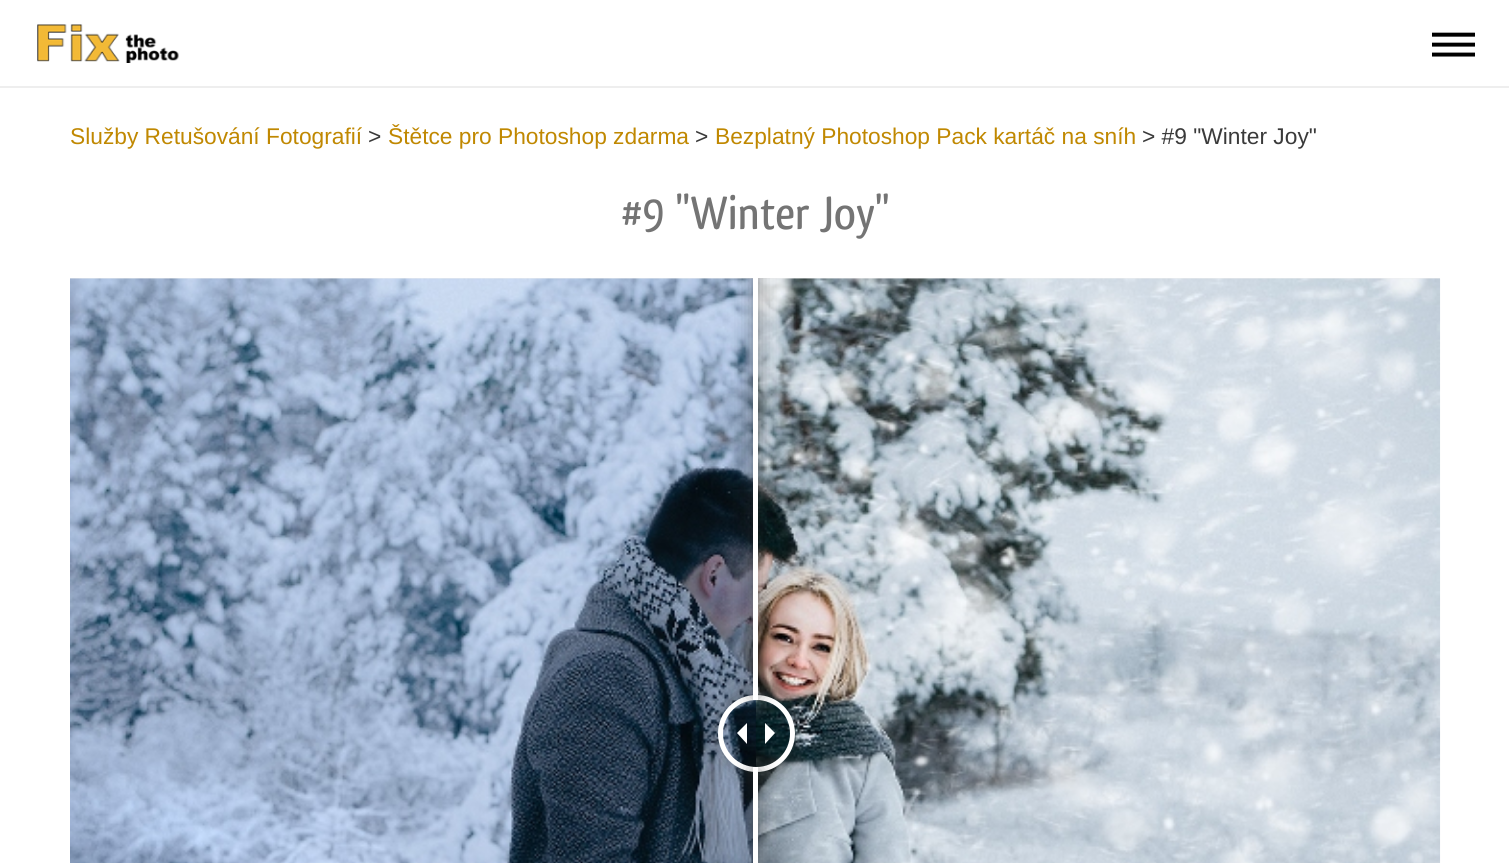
import math
import cairo

surface = cairo.ImageSurface(cairo.FORMAT_RGB24, 1509, 863)
cr = cairo.Context(surface)
options = cairo.FontOptions()
options.set_hint_metrics(cairo.HINT_METRICS_OFF)
options.set_hint_style(cairo.HINT_STYLE_NONE)
cr.set_font_options(options)
cr.set_miter_limit(4)


def rgb(code):
    cr.set_source_rgb(*(v / 255 for v in bytes.fromhex(code[-6:])))


def rrect(x, y, w, h, r):
    cr.new_sub_path()
    for i, (u, v) in enumerate([(x + w - r, y + h - r), (x + r, y + h - r), (x + r, y + r), (x + w - r, y + r)]):
        cr.arc(u, v, r, i * math.pi / 2, (i + 1) * math.pi / 2)
    cr.close_path()


def soft_shadow(x, y, w, h, r, blur, alpha):
    cr.push_group_with_content(cairo.CONTENT_ALPHA)
    cr.set_operator(cairo.OPERATOR_SOURCE)
    for i in range(15, -16, -2):
        e = blur * i / 6
        if min(w, h) + 2 * e > 0:
            cr.set_source_rgba(0, 0, 0, alpha * math.erfc((i - 1) / 8.5) / 2)
            rrect(x - e, y - e, w + 2 * e, h + 2 * e, max(0, min(r + e + blur * .6, min(w, h) / 2 + e)))
            cr.fill()
    cr.mask(cr.pop_group())


def image(path, x, y, w, h):
    cr.save()
    cr.set_source_surface(cairo.ImageSurface.create_from_png(path), x, y)
    cr.rectangle(x, y, w, h)
    cr.fill()
    cr.restore()


rgb("#ffffff")
cr.paint()
rgb("#eeeeee")
cr.rectangle(70, 278, 683, 1)
cr.fill()
image("img/3.png", 70, 278, 686, 585)
cr.rectangle(758, 278, 682, 1)
cr.fill()
image("img/4.png", 756, 278, 685, 585)
cr.save()
cr.set_fill_rule(cairo.FILL_RULE_EVEN_ODD)
cr.new_path()
cr.move_to(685, 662)
cr.line_to(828, 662)
cr.line_to(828, 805)
cr.line_to(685, 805)
cr.close_path()
cr.move_to(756.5, 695)
cr.curve_to(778, 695, 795, 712, 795, 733.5)
cr.curve_to(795, 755, 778, 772, 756.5, 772)
cr.curve_to(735, 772, 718, 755, 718, 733.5)
cr.curve_to(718, 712, 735, 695, 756.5, 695)
cr.close_path()
cr.clip()
rgb("#333333")
soft_shadow(718, 695, 77, 77, 38.5, 10.5, 0.5)
cr.restore()
cr.arc(756.5, 733.5, 36, 0, 2 * math.pi)
rgb("#ffffff")
cr.set_line_width(5)
cr.stroke()
cr.new_path()
cr.move_to(747, 723)
cr.line_to(747, 744)
cr.line_to(737, 733)
cr.close_path()
cr.move_to(765, 744)
cr.line_to(765, 723)
cr.line_to(775, 733)
cr.close_path()
cr.fill()
cr.save()
cr.rectangle(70, 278, 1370, 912)
cr.clip()
rgb("#333333")
soft_shadow(753, -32, 5, 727, 0, 10.5, 0.5)
cr.restore()
rgb("#eeeeee")
cr.rectangle(0, 86, 1509, 2)
cr.fill()
image("img/1.png", 37, 24, 142, 39)
image("img/2.png", 1432, 32, 43, 25)
rgb("#ffffff")
cr.new_path()
cr.move_to(753, 695)
cr.line_to(753, 700)
cr.line_to(758, 700)
cr.line_to(758, -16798)
cr.line_to(758, 695)
cr.close_path()
cr.fill()
cr.rectangle(753, 278, 5, 417)
cr.fill()
rgb("#333333")
soft_shadow(753, 772, 5, 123, 0, 10.5, 0.5)
rgb("#ffffff")
cr.new_path()
cr.move_to(753, 767)
cr.line_to(753, 772)
cr.line_to(758, 772)
cr.line_to(758, 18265)
cr.line_to(758, 767)
cr.close_path()
cr.fill()
cr.rectangle(753, 772, 5, 91)
cr.fill()
cr.select_font_face("Liberation Sans")
cr.set_font_size(22.75)
rgb("#c08801")
cr.move_to(70, 144)
cr.show_text("Služby Retušování Fotografií")
rgb("#3a3a3a")
cr.move_to(368, 144)
cr.show_text(">")
rgb("#c08801")
cr.move_to(388, 144)
cr.show_text("Štětce pro Photoshop zdarma")
rgb("#3a3a3a")
cr.move_to(695, 144)
cr.show_text(">")
rgb("#c08801")
cr.move_to(715, 144)
cr.show_text("Bezplatný Photoshop Pack kartáč na sníh")
rgb("#3a3a3a")
cr.move_to(1142, 144)
cr.show_text("> #9 \"Winter Joy\"")
cr.select_font_face("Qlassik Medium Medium")
cr.set_font_size(49)
rgb("#747474")
cr.move_to(621, 229)
cr.show_text("#9 \"Winter Joy\"")
surface.write_to_png("page.png")
